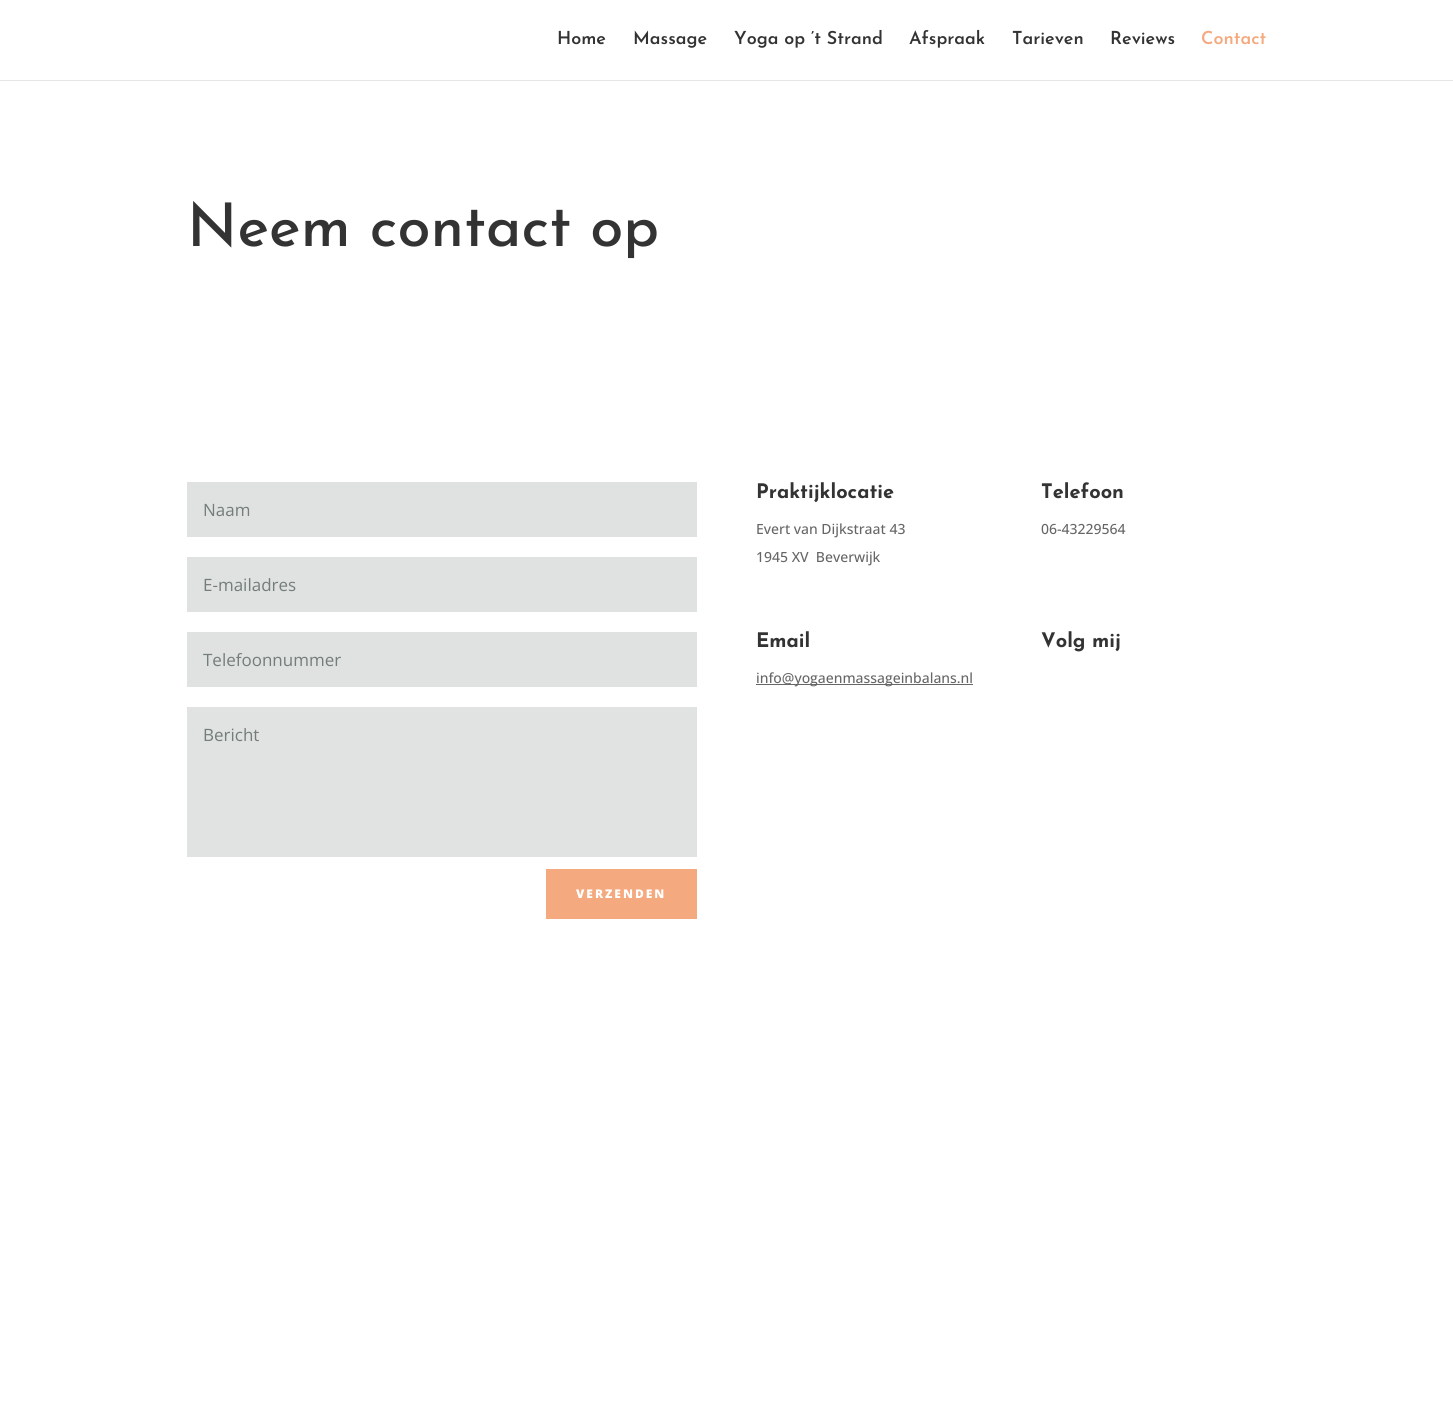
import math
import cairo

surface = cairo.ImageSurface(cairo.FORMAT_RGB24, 1453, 1409)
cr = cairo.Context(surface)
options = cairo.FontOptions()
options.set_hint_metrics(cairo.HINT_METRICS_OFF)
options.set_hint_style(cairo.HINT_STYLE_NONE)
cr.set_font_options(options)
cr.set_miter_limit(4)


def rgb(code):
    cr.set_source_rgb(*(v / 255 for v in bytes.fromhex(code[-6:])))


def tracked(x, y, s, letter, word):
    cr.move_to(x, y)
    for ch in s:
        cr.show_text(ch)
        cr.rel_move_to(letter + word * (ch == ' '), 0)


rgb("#ffffff")
cr.paint()
for x, y, w, h, color in [
    (0, 80, 1453, 1, "#e6e6e6"),
    (187, 482, 510, 55, "#e0e2e2"),
    (187, 557, 510, 55, "#e0e2e2"),
    (187, 632, 510, 55, "#e0e2e2"),
    (187, 707, 510, 150, "#e0e3e2"),
    (546, 869, 151, 50, "#f4a97e"),
    (756, 684, 217, 1, "#666666"),
]:
    rgb(color)
    cr.rectangle(x, y, w, h)
    cr.fill()
cr.select_font_face("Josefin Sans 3 Thin")
cr.set_font_size(18)
rgb("#333333")
for x, y, s in [
    (557, 44, "Home"),
    (633, 44, "Massage"),
    (734, 44, "Yoga op ’t Strand"),
    (909, 44, "Afspraak"),
    (1012, 44, "Tarieven"),
    (1110, 44, "Reviews"),
]:
    cr.move_to(x, y)
    cr.show_text(s)
rgb("#f4a97e")
cr.move_to(1201, 44)
cr.show_text("Contact")
cr.select_font_face("Josefin Sans Thin")
cr.set_font_size(60)
rgb("#333333")
cr.move_to(187, 246)
cr.show_text("Neem contact op")
cr.select_font_face("Open Sans")
cr.set_font_size(17)
rgb("#737d79")
for x, y, s in [
    (203, 516, "Naam"),
    (203, 591, "E-mailadres"),
    (203, 666, "Telefoonnummer"),
    (203, 741, "Bericht"),
]:
    cr.move_to(x, y)
    cr.show_text(s)
cr.select_font_face("Open Sans ExtraBold")
cr.set_font_size(12)
rgb("#ffffff")
tracked(576, 898, "VERZENDEN", 2, 0)
cr.select_font_face("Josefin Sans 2 Thin")
cr.set_font_size(20)
rgb("#333333")
cr.move_to(756, 498)
cr.show_text("Praktijklocatie")
cr.select_font_face("Open Sans Medium")
cr.set_font_size(14)
rgb("#666666")
cr.move_to(756, 534)
cr.show_text("Evert van Dijkstraat 43")
cr.move_to(756, 562)
cr.show_text("1945 XV  Beverwijk")
cr.select_font_face("Josefin Sans 2 Thin")
cr.set_font_size(20)
rgb("#333333")
cr.move_to(1041, 498)
cr.show_text("Telefoon")
cr.select_font_face("Open Sans Medium")
cr.set_font_size(14)
rgb("#666666")
cr.move_to(1041, 534)
cr.show_text("06-43229564")
cr.select_font_face("Josefin Sans 2 Thin")
cr.set_font_size(20)
rgb("#333333")
cr.move_to(756, 647)
cr.show_text("Email")
cr.select_font_face("Open Sans Medium")
cr.set_font_size(14)
rgb("#666666")
cr.move_to(756, 683)
cr.show_text("info@yogaenmassageinbalans.nl")
cr.select_font_face("Josefin Sans 2 Thin")
cr.set_font_size(20)
rgb("#333333")
cr.move_to(1041, 647)
cr.show_text("Volg mij")
surface.write_to_png("page.png")
